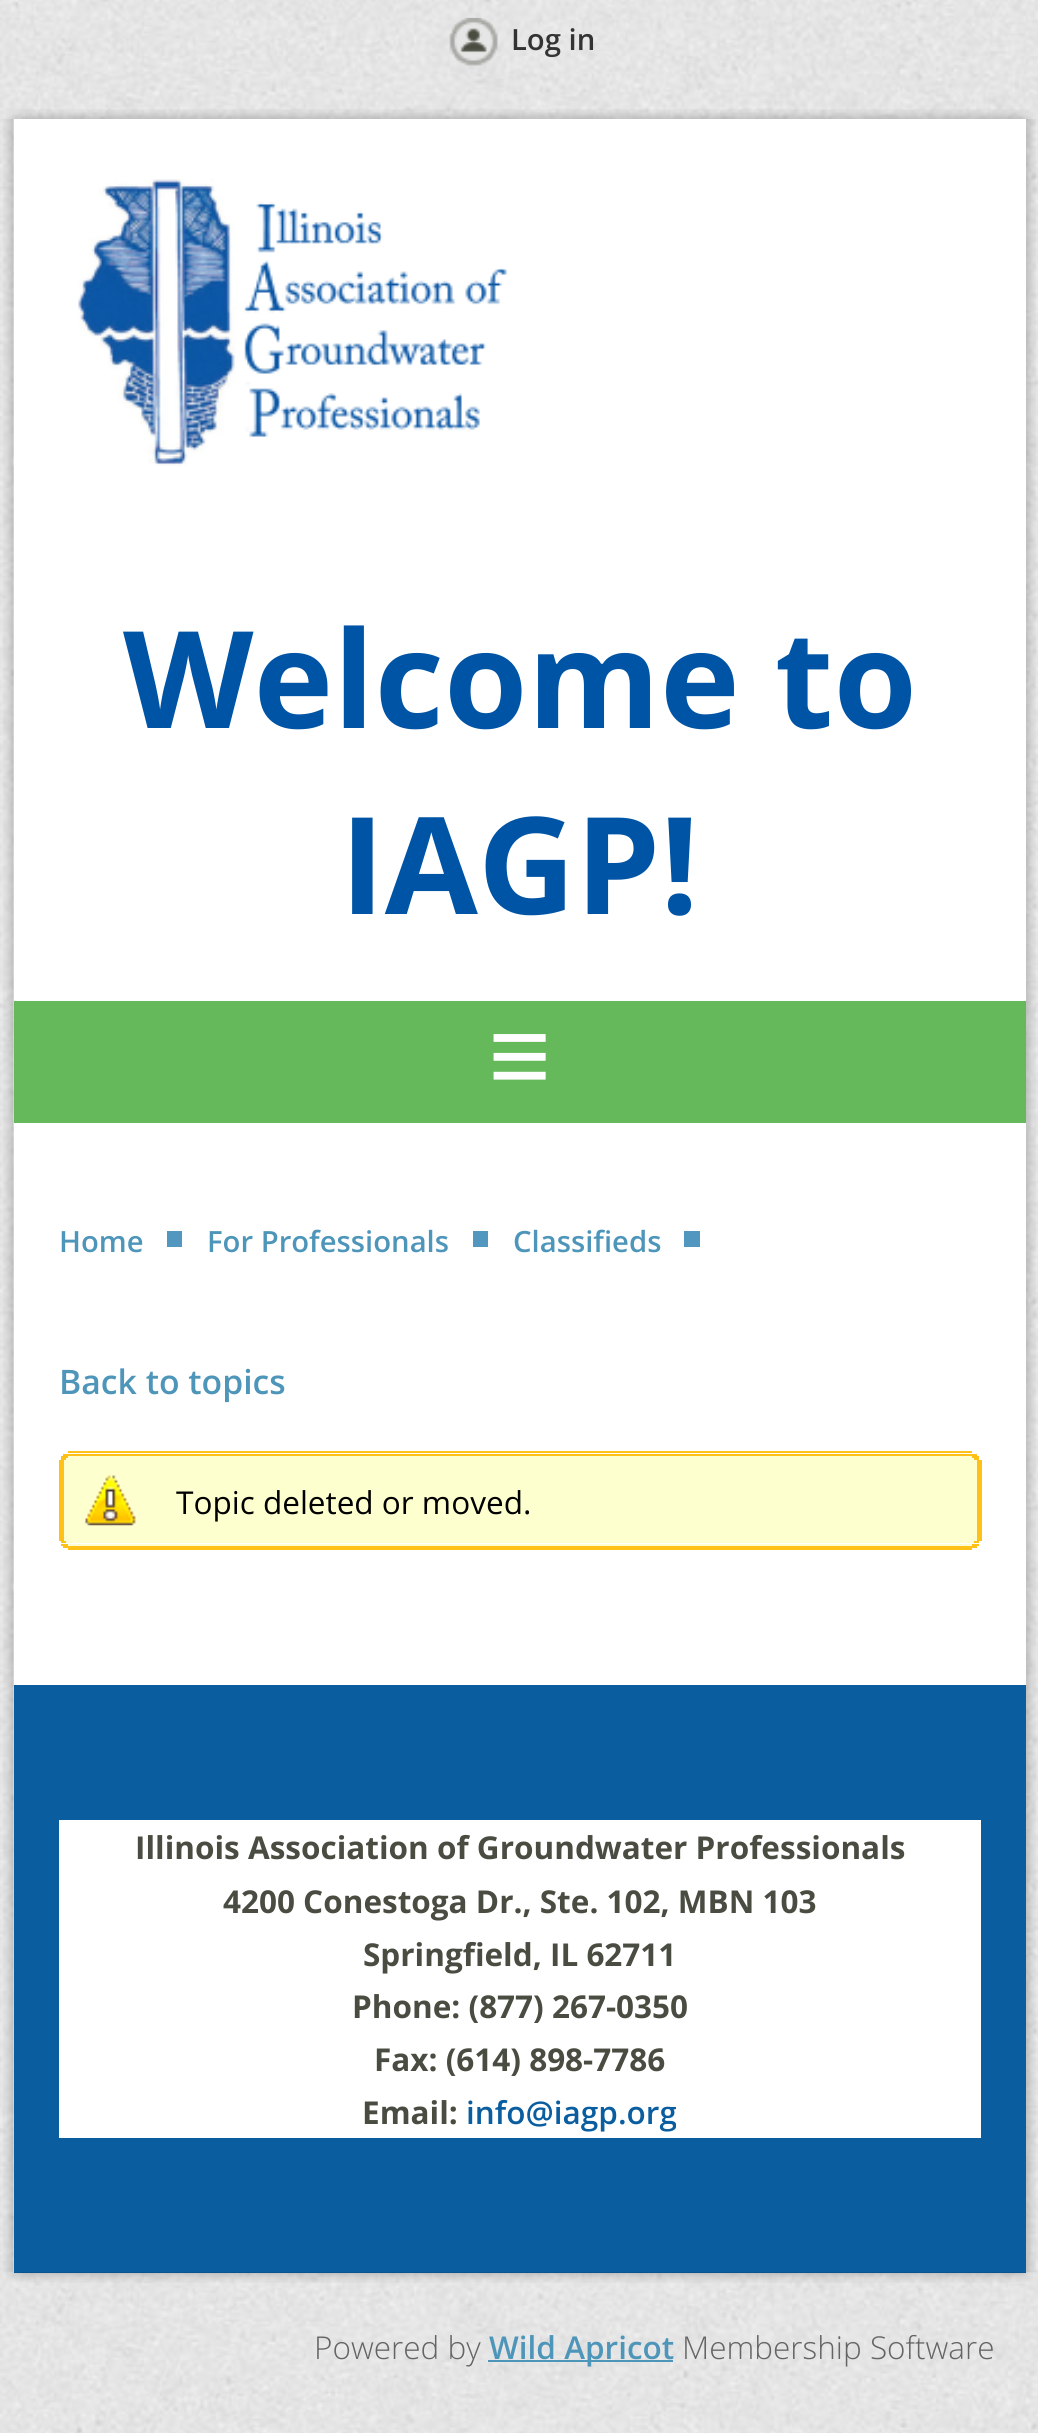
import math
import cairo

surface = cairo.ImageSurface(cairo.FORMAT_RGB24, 1038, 2433)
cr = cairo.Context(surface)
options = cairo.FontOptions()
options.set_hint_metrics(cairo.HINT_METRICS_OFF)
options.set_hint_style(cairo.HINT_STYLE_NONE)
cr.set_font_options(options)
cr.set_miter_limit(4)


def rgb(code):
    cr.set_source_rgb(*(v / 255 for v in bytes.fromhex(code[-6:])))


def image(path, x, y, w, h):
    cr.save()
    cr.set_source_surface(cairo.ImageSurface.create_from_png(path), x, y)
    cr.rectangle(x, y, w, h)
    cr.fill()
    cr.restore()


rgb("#ffffff")
cr.paint()
image("img/1.png", 0, 0, 1038, 2433)
image("img/2.png", 449, 17, 49, 49)
image("img/3.png", 6, 109, 1027, 10)
image("img/4.png", 24, 109, 991, 10)
image("img/5.png", 3, 119, 1033, 882)
rgb("#ffffff")
cr.rectangle(14, 119, 1012, 882)
cr.fill()
image("img/6.png", 78, 179, 429, 287)
image("img/7.png", 3, 1001, 1033, 122)
image("img/8.png", 3, 1122, 1033, 145)
for x, y, w, h, color in [
    (14, 1001, 1012, 122, "#66b95b"),
    (14, 1123, 1012, 144, "#ffffff"),
    (167, 1231, 15, 16, "#5297bf"),
    (473, 1231, 15, 16, "#5297bf"),
    (684, 1231, 16, 16, "#5297bf"),
]:
    rgb(color)
    cr.rectangle(x, y, w, h)
    cr.fill()
image("img/9.png", 3, 1266, 1033, 419)
for x, y, w, h, color in [
    (14, 1267, 1012, 418, "#ffffff"),
    (68, 1451, 904, 2, "#ffc017"),
    (63, 1454, 914, 2, "#ffc017"),
    (61, 1456, 918, 4, "#fdffce"),
    (972, 1456, 7, 2, "#ffc017"),
    (61, 1456, 7, 2, "#ffc017"),
    (974, 1458, 5, 2, "#ffc017"),
    (61, 1458, 5, 2, "#ffc017"),
    (64, 1460, 913, 81, "#fdffce"),
]:
    rgb(color)
    cr.rectangle(x, y, w, h)
    cr.fill()
image("img/10.png", 85, 1475, 51, 51)
for x, y, w, h, color in [
    (977, 1460, 5, 81, "#ffc017"),
    (59, 1460, 5, 81, "#ffc017"),
    (61, 1541, 918, 2, "#fdffce"),
    (974, 1541, 5, 2, "#ffc017"),
    (61, 1541, 5, 2, "#ffc017"),
    (61, 1544, 918, 2, "#fdffce"),
    (972, 1544, 7, 2, "#ffc017"),
    (61, 1544, 7, 2, "#ffc017"),
    (63, 1546, 914, 2, "#ffc017"),
    (68, 1548, 904, 2, "#ffc017"),
]:
    rgb(color)
    cr.rectangle(x, y, w, h)
    cr.fill()
image("img/11.png", 3, 1685, 1033, 588)
rgb("#0a5ea0")
cr.rectangle(14, 1685, 1012, 588)
cr.fill()
rgb("#ffffff")
cr.rectangle(59, 1820, 922, 318)
cr.fill()
image("img/12.png", 6, 2272, 1027, 10)
image("img/13.png", 24, 2272, 991, 11)
rgb("#4e95ba")
cr.rectangle(488, 2360, 185, 2)
cr.fill()
cr.select_font_face("Open Sans SemiBold")
cr.set_font_size(29.25)
rgb("#333333")
cr.move_to(511, 50)
cr.show_text("Log in")
cr.select_font_face("Open Sans", cairo.FONT_SLANT_NORMAL, cairo.FONT_WEIGHT_BOLD)
cr.set_font_size(135)
rgb("#0054a6")
cr.move_to(123, 728)
cr.show_text("Welcome to")
cr.move_to(340, 914)
cr.show_text("IAGP!")
cr.select_font_face("Liberation Serif", cairo.FONT_SLANT_NORMAL, cairo.FONT_WEIGHT_BOLD)
cr.set_font_size(112)
rgb("#ffffff")
cr.move_to(488, 1094)
cr.show_text("≡")
cr.select_font_face("Open Sans SemiBold")
cr.set_font_size(29.25)
rgb("#4e95ba")
for x, y, s in [
    (59, 1252, "Home"),
    (207, 1252, "For Professionals"),
    (513, 1252, "Classifieds"),
]:
    cr.move_to(x, y)
    cr.show_text(s)
cr.set_font_size(33.75)
cr.move_to(59, 1394)
cr.show_text("Back to topics")
cr.select_font_face("Open Sans")
cr.set_font_size(31.5)
rgb("#000000")
cr.move_to(176, 1514)
cr.show_text("Topic deleted or moved.")
cr.select_font_face("Open Sans", cairo.FONT_SLANT_NORMAL, cairo.FONT_WEIGHT_BOLD)
rgb("#494d41")
for x, y, s in [
    (135, 1859, "Illinois Association of Groundwater Professionals"),
    (223, 1913, "4200 Conestoga Dr., Ste. 102, MBN 103"),
    (363, 1966, "Springfield, IL 62711"),
    (352, 2018, "Phone: (877) 267-0350"),
    (374, 2071, "Fax: (614) 898-7786"),
    (362, 2124, "Email:"),
]:
    cr.move_to(x, y)
    cr.show_text(s)
cr.select_font_face("Open Sans SemiBold")
rgb("#0a5ea0")
cr.move_to(466, 2124)
cr.show_text("info@iagp.org")
cr.select_font_face("Open Sans Light")
rgb("#646464")
cr.move_to(314, 2359)
cr.show_text("Powered by")
cr.select_font_face("Open Sans SemiBold")
rgb("#4e95ba")
cr.move_to(489, 2359)
cr.show_text("Wild Apricot")
cr.select_font_face("Open Sans Light")
rgb("#646464")
cr.move_to(682, 2359)
cr.show_text("Membership Software")
surface.write_to_png("page.png")
